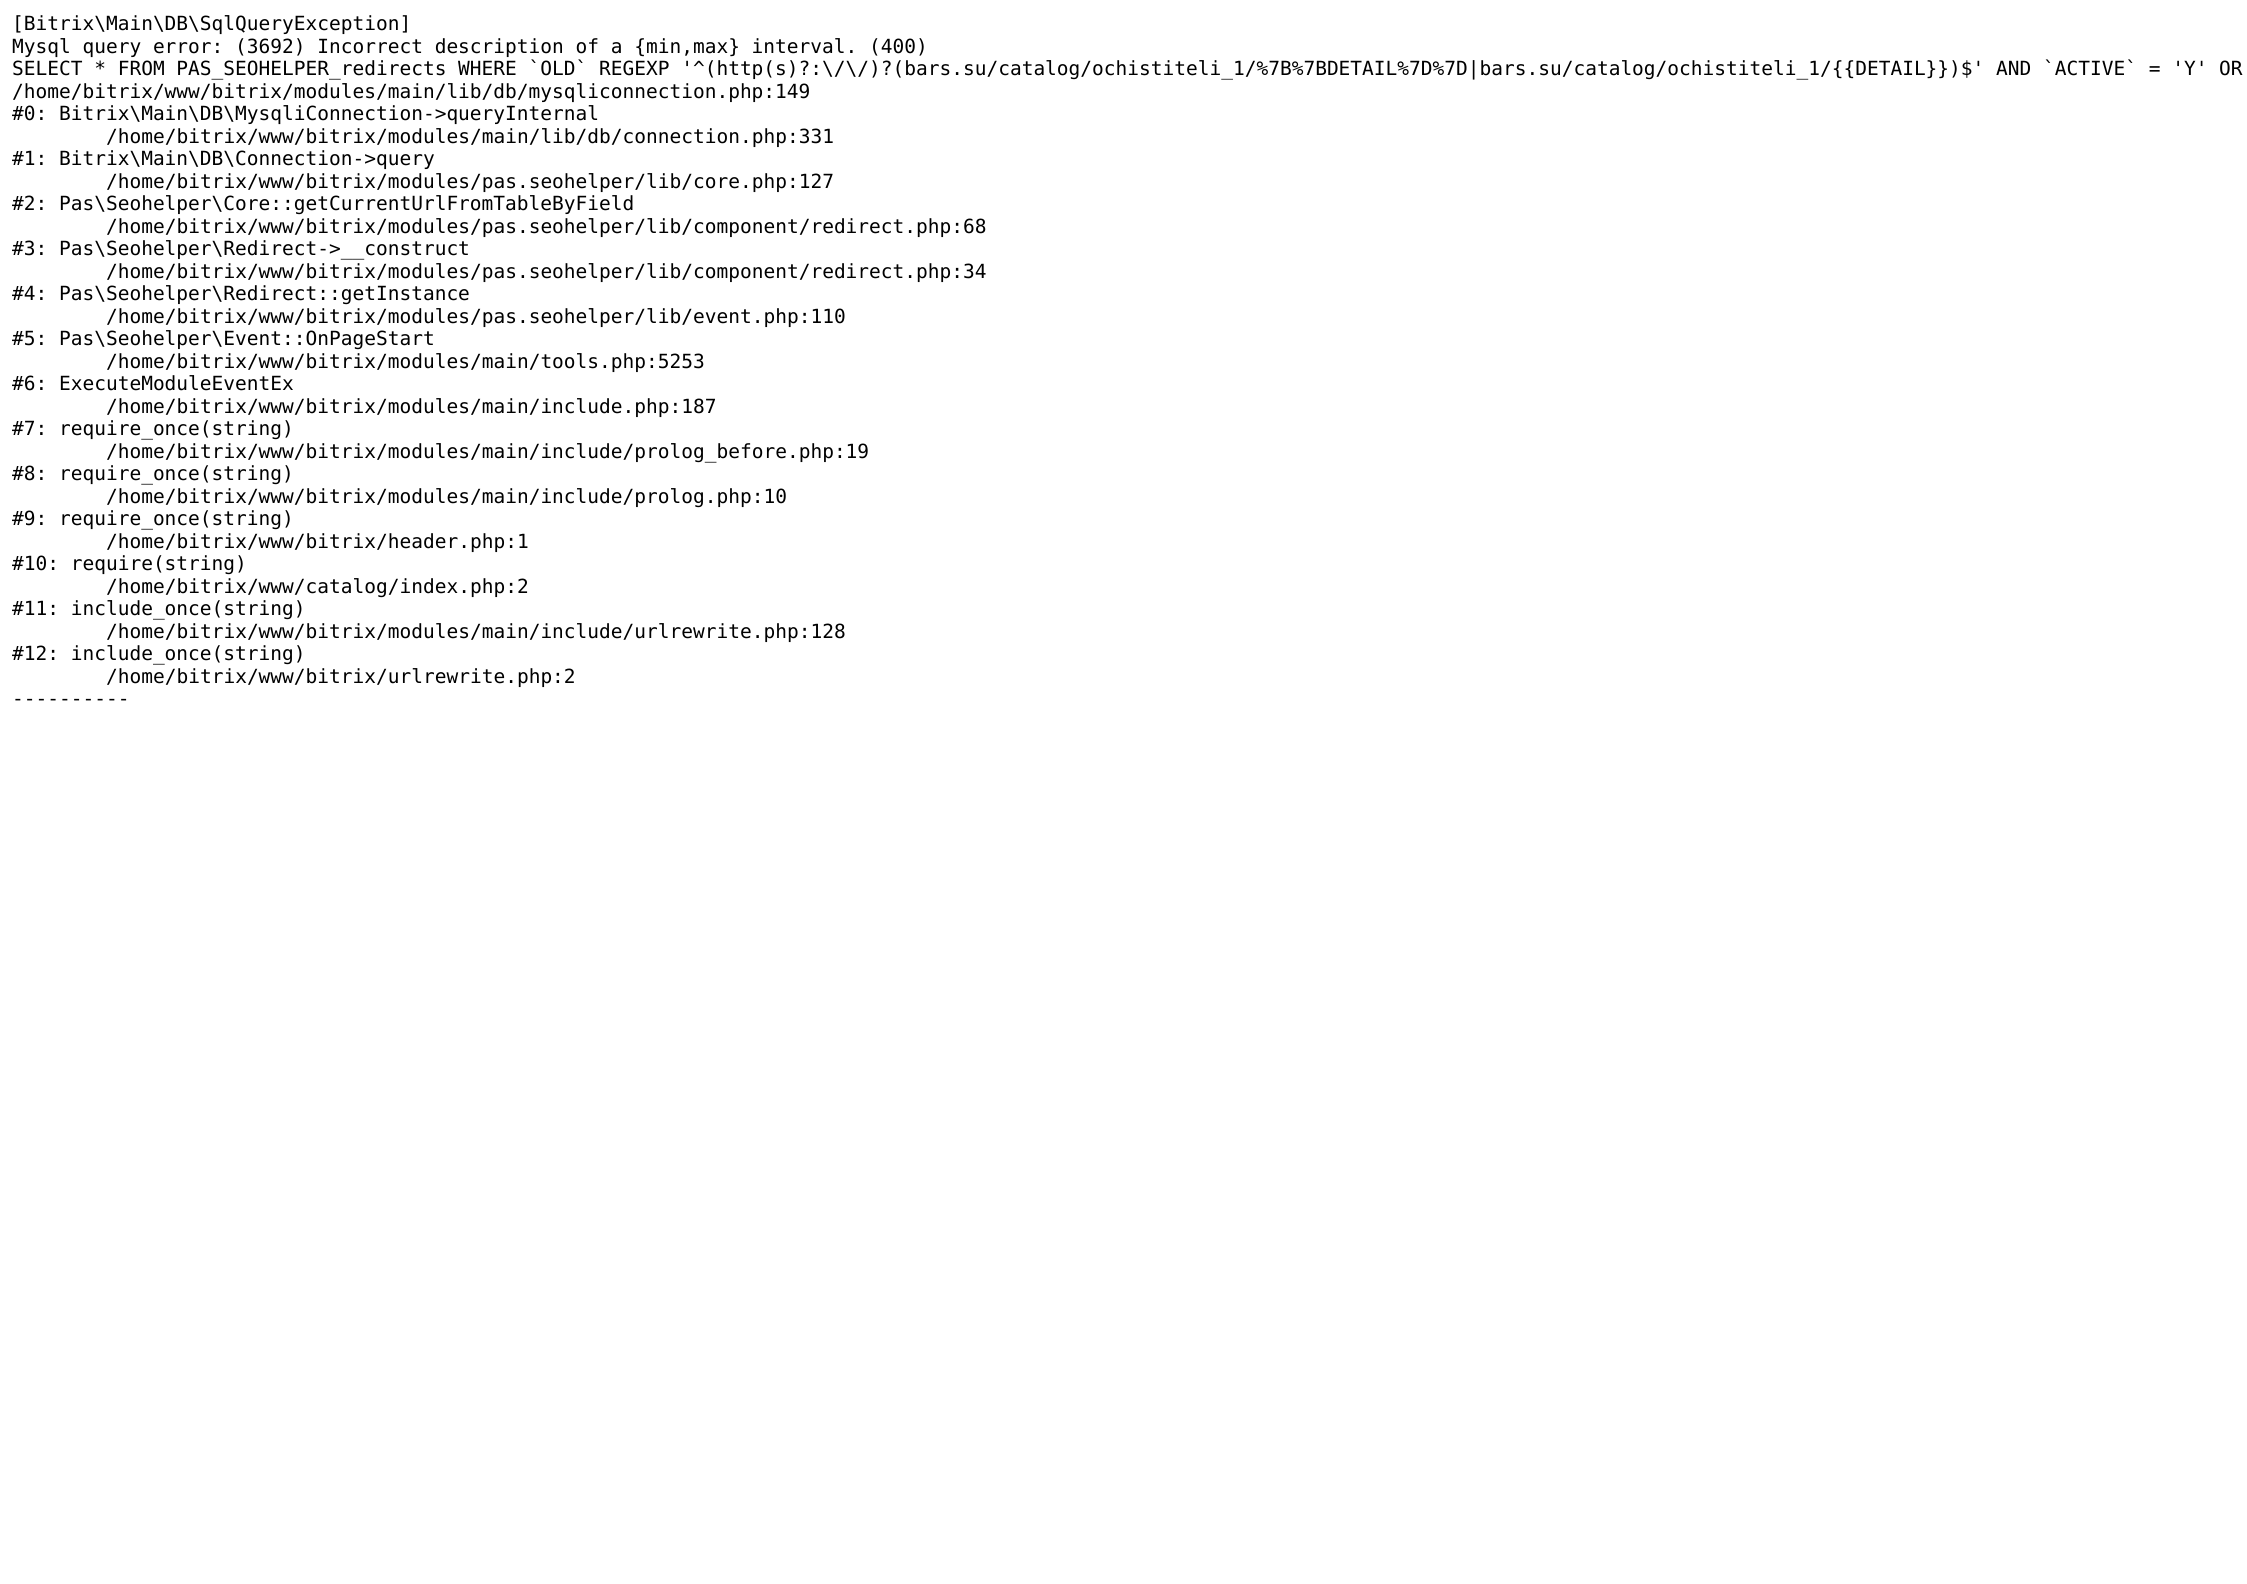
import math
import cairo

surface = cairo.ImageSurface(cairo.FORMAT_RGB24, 2247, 1584)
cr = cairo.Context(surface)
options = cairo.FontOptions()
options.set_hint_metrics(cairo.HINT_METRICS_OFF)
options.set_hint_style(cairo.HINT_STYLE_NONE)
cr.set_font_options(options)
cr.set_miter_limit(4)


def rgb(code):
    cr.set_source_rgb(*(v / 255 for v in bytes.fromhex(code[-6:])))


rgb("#ffffff")
cr.paint()
cr.select_font_face("DejaVu Sans Mono")
cr.set_font_size(19.5)
rgb("#000000")
for x, y, s in [
    (12, 30, "[Bitrix\\Main\\DB\\SqlQueryException]"),
    (12, 53, "Mysql query error: (3692) Incorrect description of a {min,max} interval. (400)"),
    (12, 75, "SELECT * FROM PAS_SEOHELPER_redirects WHERE `OLD` REGEXP '^(http(s)?:\\/\\/)?(bars.su/catalog/ochistiteli_1/%7B%7BDETAIL%7D%7D|bars.su/catalog/ochistiteli_1/{{DETAIL}})$' AND `ACTIVE` = 'Y' OR"),
    (12, 98, "/home/bitrix/www/bitrix/modules/main/lib/db/mysqliconnection.php:149"),
    (12, 120, "#0: Bitrix\\Main\\DB\\MysqliConnection->queryInternal"),
    (106, 143, "/home/bitrix/www/bitrix/modules/main/lib/db/connection.php:331"),
    (12, 165, "#1: Bitrix\\Main\\DB\\Connection->query"),
    (106, 188, "/home/bitrix/www/bitrix/modules/pas.seohelper/lib/core.php:127"),
    (12, 210, "#2: Pas\\Seohelper\\Core::getCurrentUrlFromTableByField"),
    (106, 233, "/home/bitrix/www/bitrix/modules/pas.seohelper/lib/component/redirect.php:68"),
    (12, 255, "#3: Pas\\Seohelper\\Redirect->__construct"),
    (106, 278, "/home/bitrix/www/bitrix/modules/pas.seohelper/lib/component/redirect.php:34"),
    (12, 300, "#4: Pas\\Seohelper\\Redirect::getInstance"),
    (106, 323, "/home/bitrix/www/bitrix/modules/pas.seohelper/lib/event.php:110"),
    (12, 345, "#5: Pas\\Seohelper\\Event::OnPageStart"),
    (106, 368, "/home/bitrix/www/bitrix/modules/main/tools.php:5253"),
    (12, 390, "#6: ExecuteModuleEventEx"),
    (106, 413, "/home/bitrix/www/bitrix/modules/main/include.php:187"),
    (12, 435, "#7: require_once(string)"),
    (106, 458, "/home/bitrix/www/bitrix/modules/main/include/prolog_before.php:19"),
    (12, 480, "#8: require_once(string)"),
    (106, 503, "/home/bitrix/www/bitrix/modules/main/include/prolog.php:10"),
    (12, 525, "#9: require_once(string)"),
    (106, 548, "/home/bitrix/www/bitrix/header.php:1"),
    (12, 570, "#10: require(string)"),
    (106, 593, "/home/bitrix/www/catalog/index.php:2"),
    (12, 615, "#11: include_once(string)"),
    (106, 638, "/home/bitrix/www/bitrix/modules/main/include/urlrewrite.php:128"),
    (12, 660, "#12: include_once(string)"),
    (106, 683, "/home/bitrix/www/bitrix/urlrewrite.php:2"),
    (12, 705, "----------"),
]:
    cr.move_to(x, y)
    cr.show_text(s)
surface.write_to_png("page.png")
